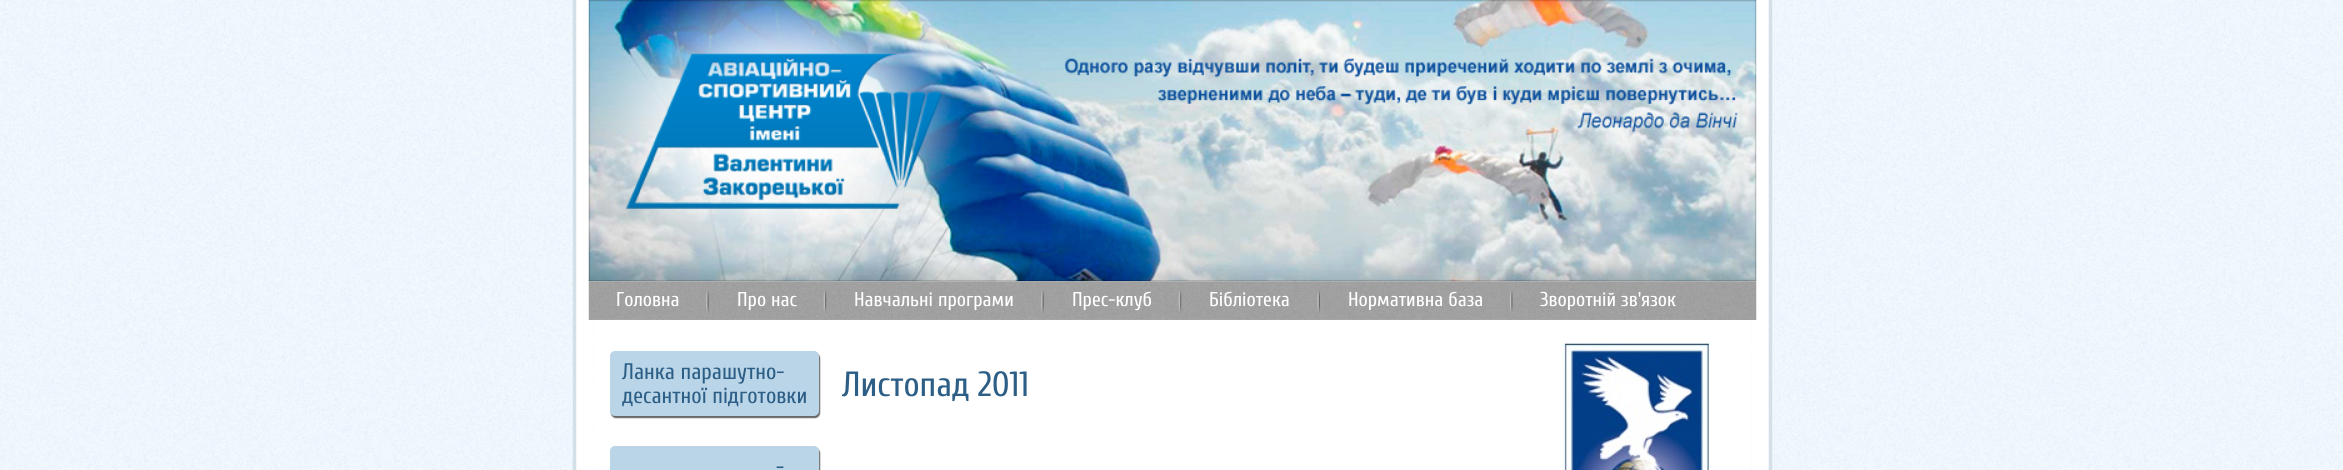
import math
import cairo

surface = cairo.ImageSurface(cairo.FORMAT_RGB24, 2343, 470)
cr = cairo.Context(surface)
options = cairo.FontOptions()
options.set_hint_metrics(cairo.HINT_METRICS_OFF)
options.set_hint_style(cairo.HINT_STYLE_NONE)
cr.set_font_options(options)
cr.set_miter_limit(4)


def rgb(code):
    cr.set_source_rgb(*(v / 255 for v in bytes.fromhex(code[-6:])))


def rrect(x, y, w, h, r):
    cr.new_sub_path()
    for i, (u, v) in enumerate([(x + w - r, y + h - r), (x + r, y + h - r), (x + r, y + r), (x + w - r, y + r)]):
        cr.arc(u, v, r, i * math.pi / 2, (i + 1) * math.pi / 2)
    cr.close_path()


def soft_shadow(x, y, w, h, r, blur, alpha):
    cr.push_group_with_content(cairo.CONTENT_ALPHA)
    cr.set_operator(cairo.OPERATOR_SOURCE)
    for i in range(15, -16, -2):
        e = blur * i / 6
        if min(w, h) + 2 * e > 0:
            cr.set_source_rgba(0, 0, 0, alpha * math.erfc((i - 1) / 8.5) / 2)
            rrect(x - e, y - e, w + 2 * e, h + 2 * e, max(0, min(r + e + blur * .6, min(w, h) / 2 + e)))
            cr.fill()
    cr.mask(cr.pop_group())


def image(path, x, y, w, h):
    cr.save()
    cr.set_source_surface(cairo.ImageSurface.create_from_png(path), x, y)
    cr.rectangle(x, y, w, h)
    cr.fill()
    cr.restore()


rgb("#ffffff")
cr.paint()
image("img/1.png", 0, 0, 2343, 470)
image("img/2.png", 572, 0, 17, 5)
image("img/3.png", 1756, 0, 17, 5)
image("img/4.png", 572, 5, 22, 465)
rgb("#ffffff")
cr.rectangle(594, 281, 1157, 189)
cr.fill()
image("img/5.png", 1751, 5, 22, 465)
image("img/6.png", 588, 0, 1169, 282)
image("img/7.png", 626, 53, 316, 156)
image("img/8.png", 588, 281, 1169, 39)
image("img/9.png", 589, 319, 117, 1)
image("img/10.png", 706, 290, 3, 23)
image("img/11.png", 709, 319, 114, 1)
image("img/12.png", 823, 290, 4, 23)
image("img/13.png", 827, 319, 214, 1)
image("img/14.png", 1041, 290, 3, 23)
image("img/15.png", 1044, 319, 134, 1)
image("img/16.png", 1178, 290, 4, 23)
image("img/17.png", 1182, 319, 135, 1)
image("img/18.png", 1317, 290, 3, 23)
image("img/19.png", 1320, 319, 190, 1)
image("img/20.png", 1510, 290, 3, 22)
image("img/21.png", 1513, 319, 190, 1)
rgb("#666666")
soft_shadow(611, 353, 209, 65, 5, 0.5, 1)
rgb("#bad5e8")
rrect(610, 351, 209, 65, 5)
cr.fill()
rgb("#666666")
soft_shadow(611, 448, 209, 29, 5, 0.5, 1)
rgb("#bad5e8")
rrect(610, 446, 209, 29, 5)
cr.fill()
image("img/22.png", 1561, 341, 150, 129)
cr.select_font_face("Cuprum")
cr.set_font_size(20)
rgb("#ffffff")
for x, y, s in [
    (616, 306, "Головна"),
    (737, 306, "Про нас"),
    (854, 306, "Навчальні програми"),
    (1072, 306, "Прес-клуб"),
    (1209, 306, "Бібліотека"),
    (1348, 306, "Нормативна база"),
    (1540, 306, "Зворотній зв'язок"),
]:
    cr.move_to(x, y)
    cr.show_text(s)
cr.set_font_size(22.5)
rgb("#2d5f86")
for x, y, s in [
    (622, 379, "Ланка парашутно-"),
    (622, 403, "десантної підготовки"),
    (776, 474, "-"),
]:
    cr.move_to(x, y)
    cr.show_text(s)
cr.set_font_size(35)
cr.move_to(842, 396)
cr.show_text("Листопад 2011")
surface.write_to_png("page.png")
